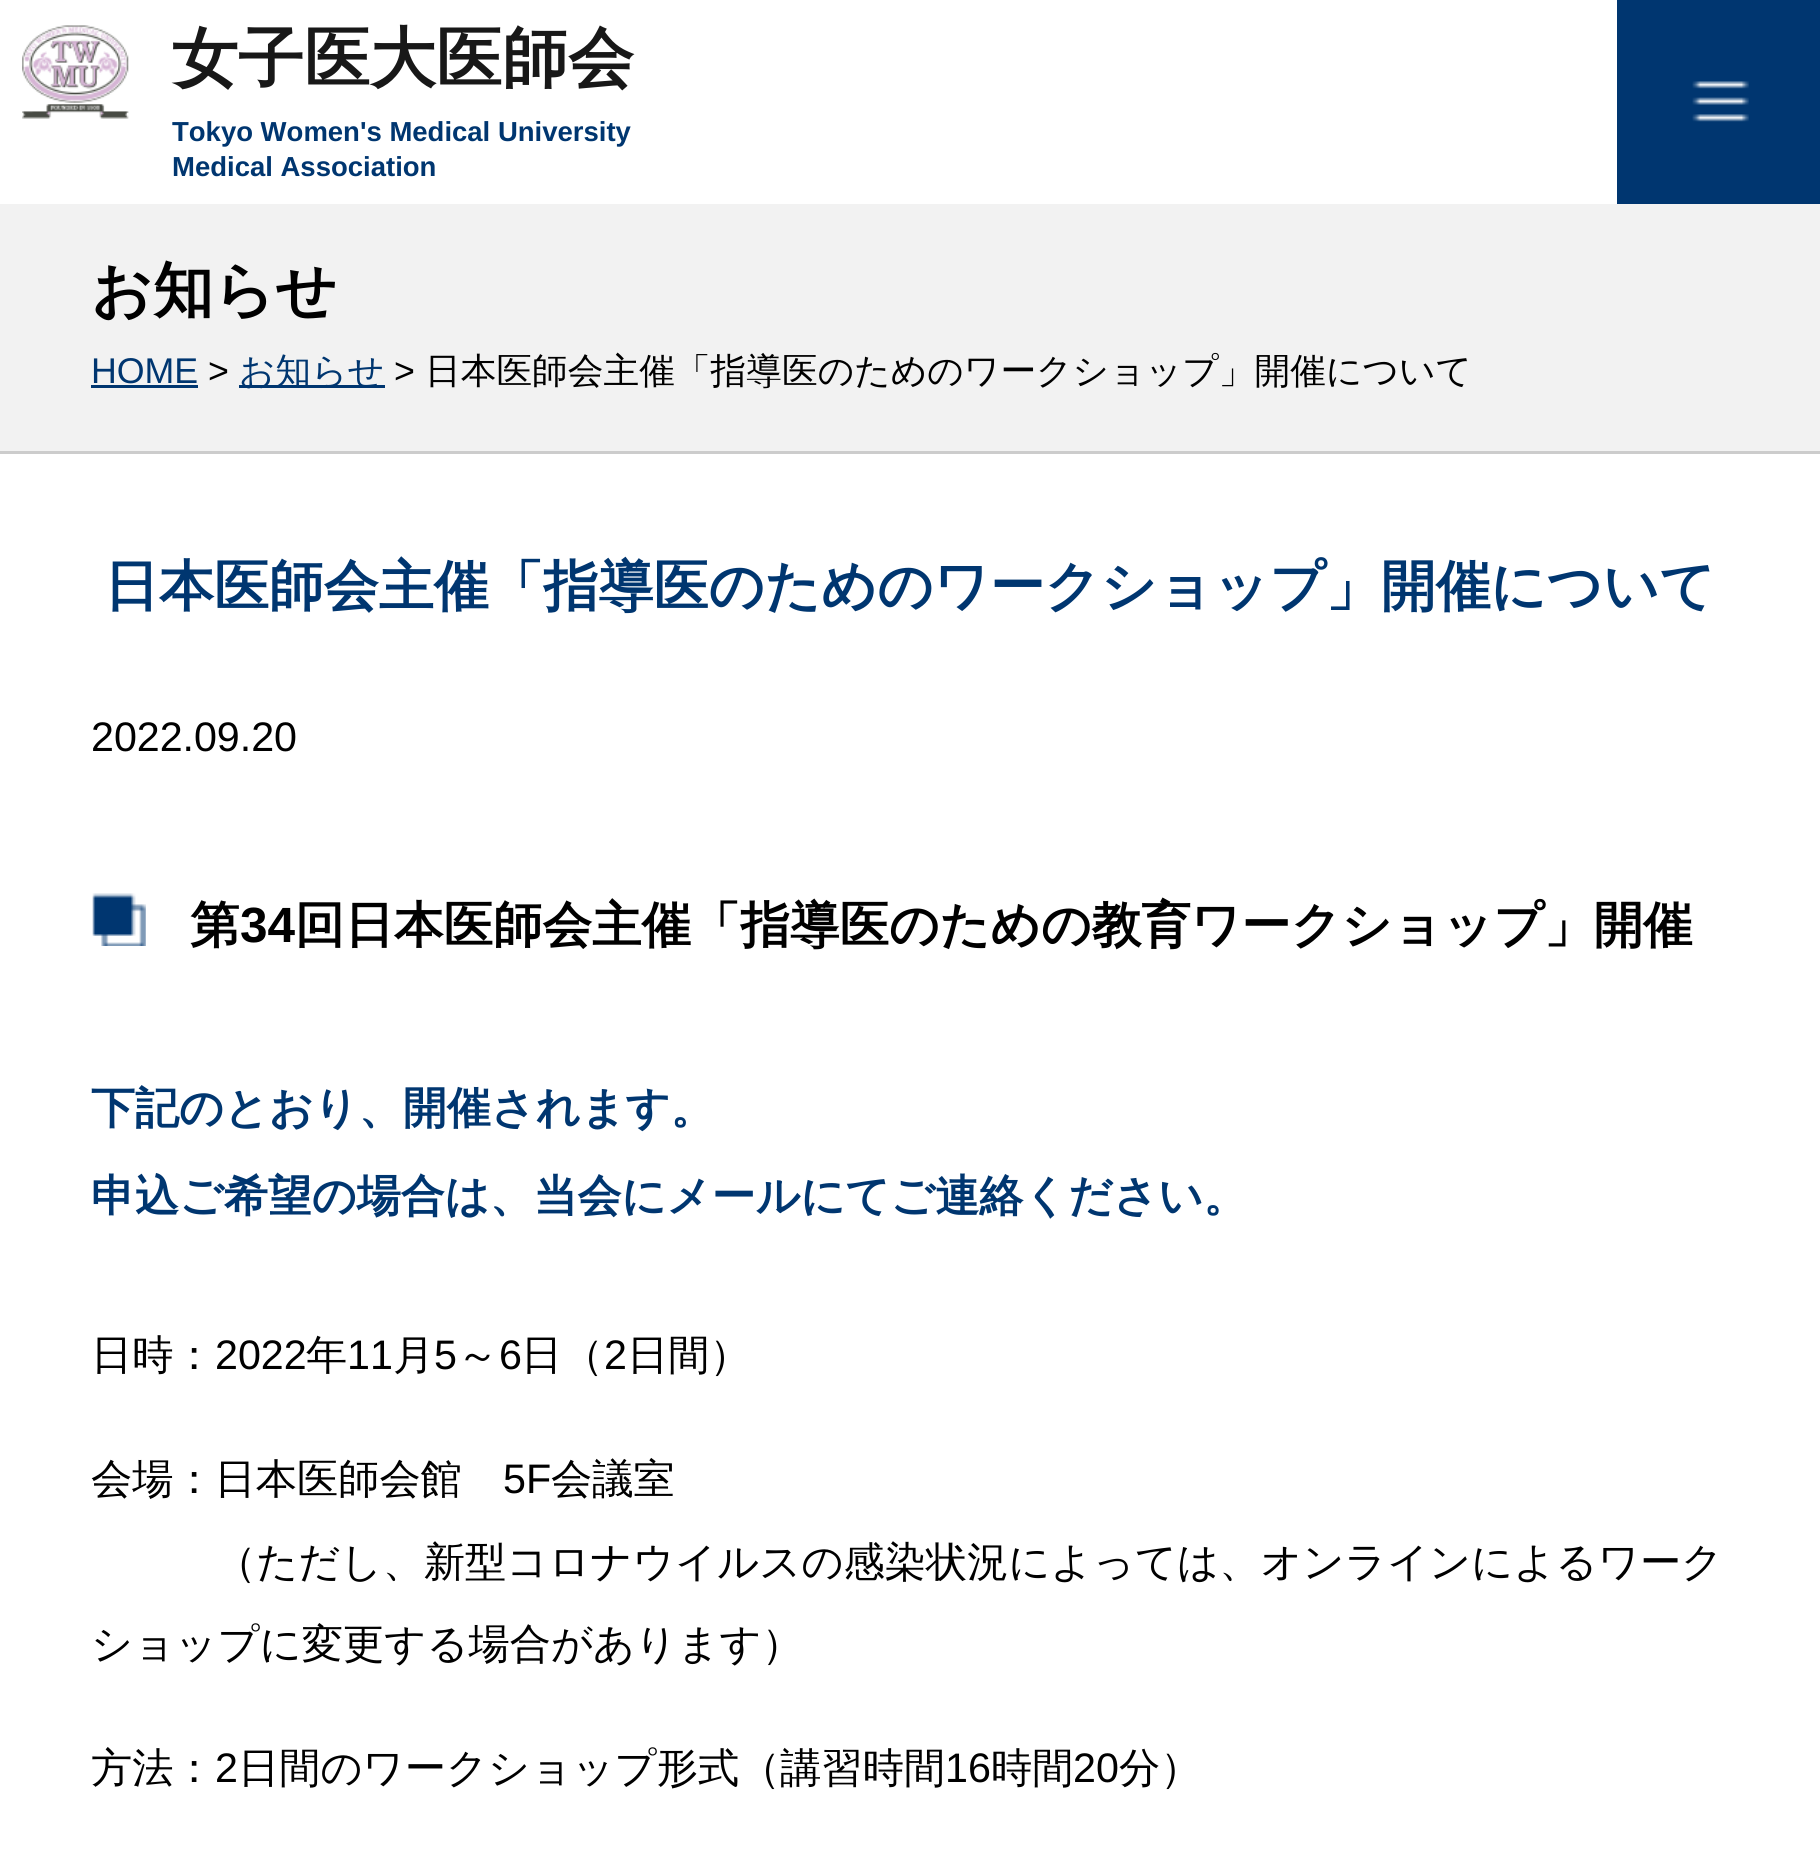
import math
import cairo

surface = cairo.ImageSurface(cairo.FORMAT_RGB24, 1820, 1856)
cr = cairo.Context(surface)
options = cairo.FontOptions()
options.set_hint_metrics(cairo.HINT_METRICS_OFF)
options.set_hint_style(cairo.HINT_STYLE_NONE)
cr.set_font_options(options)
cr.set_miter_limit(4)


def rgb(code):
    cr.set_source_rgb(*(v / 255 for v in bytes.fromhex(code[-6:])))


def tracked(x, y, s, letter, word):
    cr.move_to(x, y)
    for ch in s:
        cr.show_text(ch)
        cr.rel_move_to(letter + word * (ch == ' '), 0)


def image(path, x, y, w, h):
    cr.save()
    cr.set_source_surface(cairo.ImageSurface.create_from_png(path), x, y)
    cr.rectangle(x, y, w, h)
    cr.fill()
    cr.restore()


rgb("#ffffff")
cr.paint()
image("img/1.png", 22, 25, 107, 94)
rgb("#003670")
cr.rectangle(1617, 0, 203, 204)
cr.fill()
image("img/2.png", 1692, 81, 57, 41)
for x, y, w, h, color in [
    (0, 204, 1820, 247, "#f2f2f2"),
    (0, 451, 1820, 3, "#cccccc"),
    (91, 385, 107, 3, "#003670"),
    (239, 385, 146, 3, "#003670"),
]:
    rgb(color)
    cr.rectangle(x, y, w, h)
    cr.fill()
image("img/3.png", 92, 893, 54, 53)
cr.select_font_face("WenQuanYi Zen Hei", cairo.FONT_SLANT_NORMAL, cairo.FONT_WEIGHT_BOLD)
cr.set_font_size(66)
rgb("#181818")
cr.move_to(172, 81)
cr.show_text("女子医大医師会")
cr.select_font_face("Liberation Sans", cairo.FONT_SLANT_NORMAL, cairo.FONT_WEIGHT_BOLD)
cr.set_font_size(27.5)
rgb("#003670")
cr.move_to(172, 141)
cr.show_text("Tokyo Women's Medical University")
cr.move_to(172, 176)
cr.show_text("Medical Association")
cr.select_font_face("WenQuanYi Zen Hei", cairo.FONT_SLANT_NORMAL, cairo.FONT_WEIGHT_BOLD)
cr.set_font_size(60.5)
rgb("#000000")
cr.move_to(91, 311)
cr.show_text("お知らせ")
cr.select_font_face("Liberation Sans")
cr.set_font_size(35.75)
rgb("#003670")
tracked(91, 383, "HOME", -0.05, 0)
rgb("#000000")
tracked(208, 383, ">", -0.05, 0)
cr.select_font_face("WenQuanYi Zen Hei Medium")
rgb("#003670")
tracked(239, 383, "お知らせ", -0.05, 0)
cr.select_font_face("Liberation Sans")
rgb("#000000")
tracked(394, 383, ">", -0.05, 0)
cr.select_font_face("WenQuanYi Zen Hei Medium")
tracked(425, 383, "日本医師会主催「指導医のためのワークショップ」開催について", -0.05, 0)
cr.select_font_face("WenQuanYi Zen Hei", cairo.FONT_SLANT_NORMAL, cairo.FONT_WEIGHT_BOLD)
cr.set_font_size(55)
rgb("#003670")
tracked(104, 605, "日本医師会主催「指導医のためのワークショップ」開催について", -0.05, 0)
cr.select_font_face("Liberation Sans")
cr.set_font_size(41.25)
rgb("#000000")
tracked(91, 751, "2022.09.20", -0.05, 0)
cr.select_font_face("WenQuanYi Zen Hei", cairo.FONT_SLANT_NORMAL, cairo.FONT_WEIGHT_BOLD)
cr.set_font_size(49.5)
cr.move_to(190, 942)
cr.show_text("第")
cr.select_font_face("Liberation Sans", cairo.FONT_SLANT_NORMAL, cairo.FONT_WEIGHT_BOLD)
cr.move_to(240, 942)
cr.show_text("34")
cr.select_font_face("WenQuanYi Zen Hei", cairo.FONT_SLANT_NORMAL, cairo.FONT_WEIGHT_BOLD)
cr.move_to(295, 942)
cr.show_text("回日本医師会主催「指導医のための教育ワークショップ」開催")
cr.set_font_size(44)
rgb("#003670")
tracked(91, 1123, "下記のとおり、開催されます。", -0.05, 0)
tracked(91, 1211, "申込ご希望の場合は、当会にメールにてご連絡ください。", -0.05, 0)
cr.select_font_face("WenQuanYi Zen Hei Medium")
cr.set_font_size(41.25)
rgb("#000000")
tracked(91, 1369, "日時：", -0.05, 0)
cr.select_font_face("Liberation Sans")
tracked(215, 1369, "2022", -0.05, 0)
cr.select_font_face("WenQuanYi Zen Hei Medium")
tracked(306, 1369, "年", -0.05, 0)
cr.select_font_face("Liberation Sans")
tracked(347, 1369, "11", -0.05, 0)
cr.select_font_face("WenQuanYi Zen Hei Medium")
tracked(393, 1369, "月", -0.05, 0)
cr.select_font_face("Liberation Sans")
tracked(434, 1369, "5", -0.05, 0)
cr.select_font_face("WenQuanYi Zen Hei Medium")
tracked(457, 1369, "～", -0.05, 0)
cr.select_font_face("Liberation Sans")
tracked(499, 1369, "6", -0.05, 0)
cr.select_font_face("WenQuanYi Zen Hei Medium")
tracked(521, 1369, "日（", -0.05, 0)
cr.select_font_face("Liberation Sans")
tracked(604, 1369, "2", -0.05, 0)
cr.select_font_face("WenQuanYi Zen Hei Medium")
tracked(627, 1369, "日間）", -0.05, 0)
tracked(91, 1493, "会場：日本医師会館", -0.05, 0)
cr.select_font_face("Liberation Sans")
tracked(503, 1493, "5F", -0.05, 0)
cr.select_font_face("WenQuanYi Zen Hei Medium")
for x, y, s in [
    (551, 1493, "会議室"),
    (215, 1576, "（ただし、新型コロナウイルスの感染状況によっては、オンラインによるワーク"),
    (91, 1658, "ショップに変更する場合があります）"),
    (91, 1782, "方法："),
]:
    tracked(x, y, s, -0.05, 0)
cr.select_font_face("Liberation Sans")
tracked(215, 1782, "2", -0.05, 0)
cr.select_font_face("WenQuanYi Zen Hei Medium")
tracked(238, 1782, "日間のワークショップ形式（講習時間", -0.05, 0)
cr.select_font_face("Liberation Sans")
tracked(945, 1782, "16", -0.05, 0)
cr.select_font_face("WenQuanYi Zen Hei Medium")
tracked(991, 1782, "時間", -0.05, 0)
cr.select_font_face("Liberation Sans")
tracked(1073, 1782, "20", -0.05, 0)
cr.select_font_face("WenQuanYi Zen Hei Medium")
tracked(1119, 1782, "分）", -0.05, 0)
surface.write_to_png("page.png")
